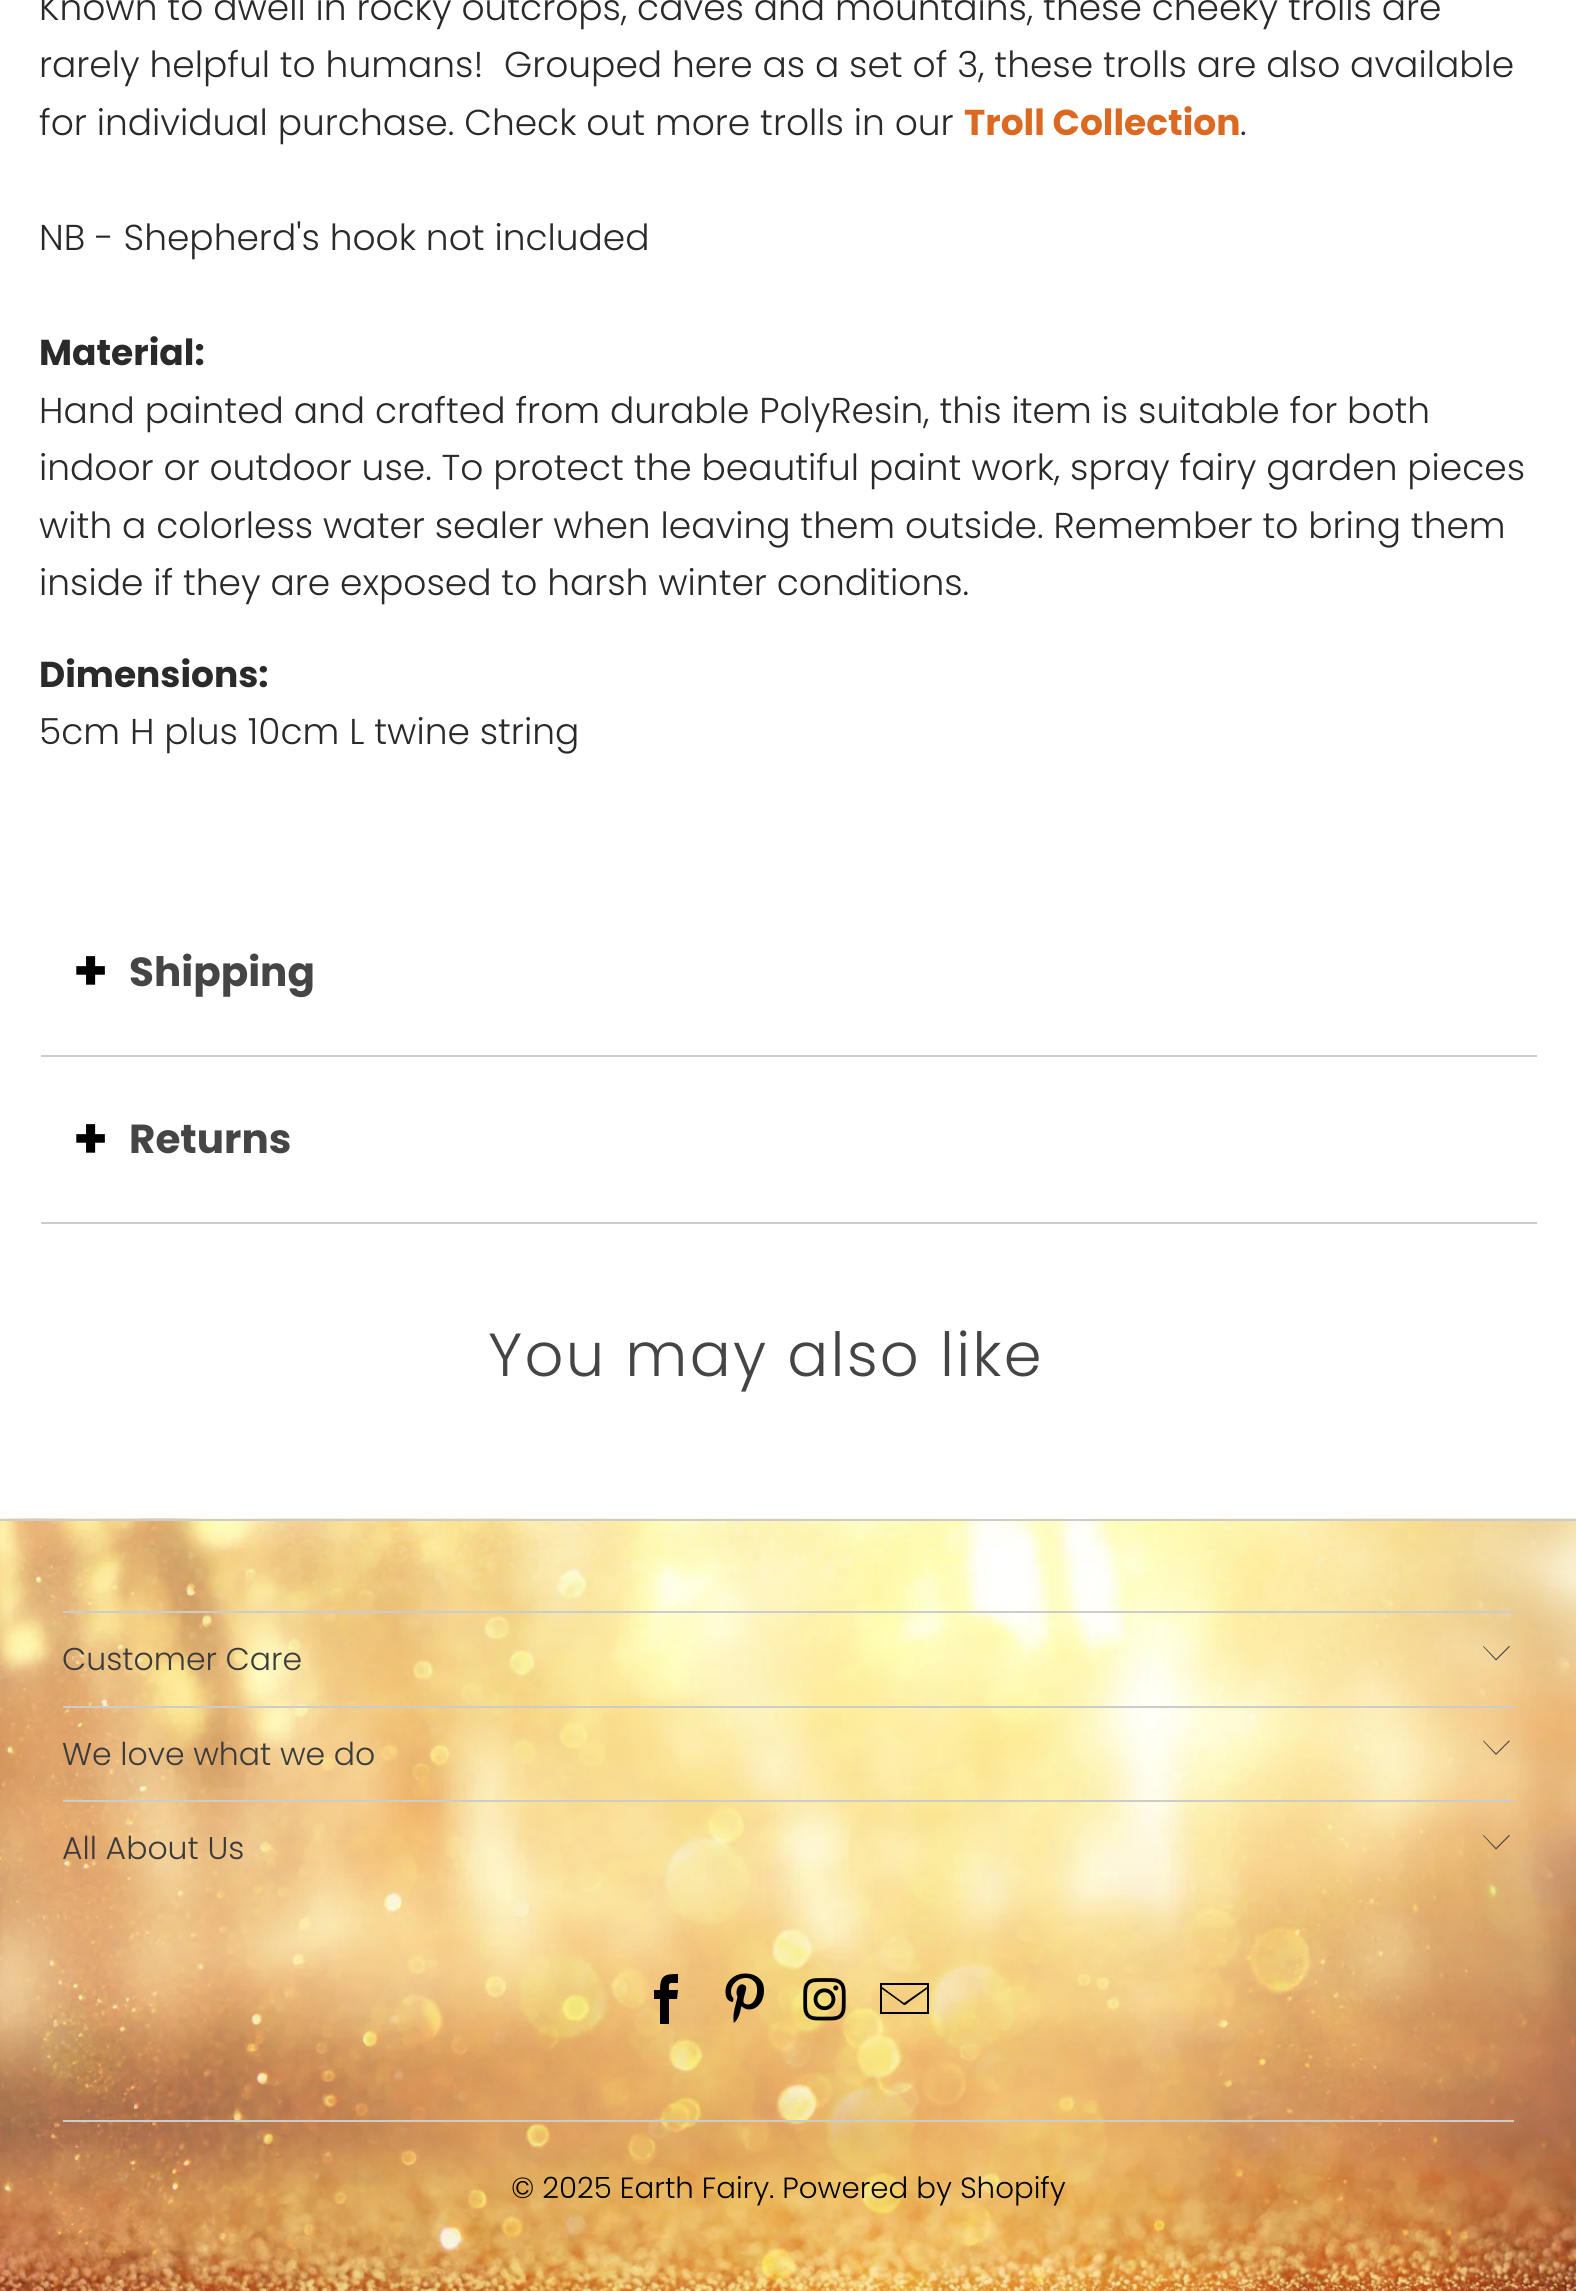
import math
import cairo

surface = cairo.ImageSurface(cairo.FORMAT_RGB24, 1576, 2291)
cr = cairo.Context(surface)
options = cairo.FontOptions()
options.set_hint_metrics(cairo.HINT_METRICS_OFF)
options.set_hint_style(cairo.HINT_STYLE_NONE)
cr.set_font_options(options)
cr.set_miter_limit(4)


def rgb(code):
    cr.set_source_rgb(*(v / 255 for v in bytes.fromhex(code[-6:])))


def tracked(x, y, s, letter, word):
    cr.move_to(x, y)
    for ch in s:
        cr.show_text(ch)
        cr.rel_move_to(letter + word * (ch == ' '), 0)


def image(path, x, y, w, h):
    cr.save()
    cr.set_source_surface(cairo.ImageSurface.create_from_png(path), x, y)
    cr.rectangle(x, y, w, h)
    cr.fill()
    cr.restore()


rgb("#ffffff")
cr.paint()
rgb("#cccccc")
cr.rectangle(41, 1055, 1496, 2)
cr.fill()
cr.rectangle(41, 1222, 1496, 2)
cr.fill()
image("img/1.png", 0, 1518, 1576, 773)
cr.rectangle(0, 1519, 1576, 2)
cr.fill()
cr.rectangle(63, 1611, 1451, 2)
cr.fill()
rgb("#3b3b3b")
cr.new_path()
cr.move_to(1496, 1660.5)
cr.line_to(1483, 1646.5)
cr.line_to(1483.5, 1646)
cr.line_to(1496, 1659)
cr.line_to(1509, 1646)
cr.line_to(1510, 1646.5)
cr.close_path()
cr.fill()
rgb("#cccccc")
cr.rectangle(63, 1706, 1451, 2)
cr.fill()
rgb("#3b3b3b")
cr.new_path()
cr.move_to(1496, 1755)
cr.line_to(1483, 1741)
cr.line_to(1483.5, 1740.5)
cr.line_to(1496, 1753.5)
cr.line_to(1509, 1740.5)
cr.line_to(1510, 1741)
cr.close_path()
cr.fill()
rgb("#cccccc")
cr.rectangle(63, 1800, 1451, 2)
cr.fill()
rgb("#3b3b3b")
cr.new_path()
cr.move_to(1496, 1849.5)
cr.line_to(1483, 1835.5)
cr.line_to(1483.5, 1835)
cr.line_to(1496, 1848)
cr.line_to(1509, 1835)
cr.line_to(1510, 1835.5)
cr.close_path()
cr.fill()
rgb("#000000")
cr.new_path()
cr.move_to(671, 1983)
cr.line_to(678, 1983)
cr.line_to(678, 1974)
cr.curve_to(665, 1974, 660, 1975, 660, 1990)
cr.line_to(654, 1990)
cr.line_to(654, 1999)
cr.line_to(660, 1999)
cr.line_to(660, 2024)
cr.line_to(669, 2024)
cr.line_to(669, 1999)
cr.line_to(677, 1999)
cr.line_to(678, 1990)
cr.line_to(669, 1990)
cr.curve_to(669, 1988, 668, 1983, 671, 1983)
cr.close_path()
cr.fill()
image("img/2.png", 725, 1973, 39, 50)
image("img/3.png", 803, 1978, 43, 43)
cr.new_path()
cr.move_to(880, 1983)
cr.line_to(880, 2014)
cr.line_to(929, 2014)
cr.line_to(929, 1983)
cr.close_path()
cr.move_to(927, 1985)
cr.line_to(927, 1987)
cr.line_to(904, 2003)
cr.line_to(882, 1987)
cr.line_to(882, 1985)
cr.close_path()
cr.move_to(882, 2012)
cr.line_to(882, 1989)
cr.line_to(900, 2002)
cr.curve_to(905, 2006, 904, 2006, 909, 2002)
cr.line_to(927, 1989)
cr.line_to(927, 2012)
cr.close_path()
cr.fill()
rgb("#cccccc")
cr.rectangle(63, 2120, 1451, 2)
cr.fill()
cr.select_font_face("Poppins Light")
cr.set_font_size(36)
rgb("#2b2a2a")
for x, y, s in [
    (39, 20, "Known to dwell in rocky outcrops, caves and mountains, these cheeky trolls are"),
    (39, 77, "rarely helpful to humans!"),
    (504, 77, "Grouped here as a set of 3, these trolls are also available"),
    (39, 135, "for individual purchase. Check out more trolls in our"),
]:
    cr.move_to(x, y)
    cr.show_text(s)
cr.select_font_face("Poppins", cairo.FONT_SLANT_NORMAL, cairo.FONT_WEIGHT_BOLD)
rgb("#db6921")
cr.move_to(964, 135)
cr.show_text("Troll Collection")
cr.select_font_face("Poppins Light")
rgb("#2b2a2a")
cr.move_to(1240, 135)
cr.show_text(".")
cr.move_to(39, 250)
cr.show_text("NB - Shepherd's hook not included")
cr.select_font_face("Poppins", cairo.FONT_SLANT_NORMAL, cairo.FONT_WEIGHT_BOLD)
cr.move_to(39, 365)
cr.show_text("Material:")
cr.select_font_face("Poppins Light")
for x, y, s in [
    (39, 423, "Hand painted and crafted from durable PolyResin, this item is suitable for both"),
    (39, 480, "indoor or outdoor use. To protect the beautiful paint work, spray fairy garden pieces"),
    (39, 538, "with a colorless water sealer when leaving them outside. Remember to bring them"),
    (39, 595, "inside if they are exposed to harsh winter conditions."),
]:
    cr.move_to(x, y)
    cr.show_text(s)
cr.select_font_face("Poppins", cairo.FONT_SLANT_NORMAL, cairo.FONT_WEIGHT_BOLD)
cr.move_to(39, 687)
cr.show_text("Dimensions:")
cr.select_font_face("Poppins Light")
cr.move_to(39, 744)
cr.show_text("5cm H plus 10cm L twine string")
cr.select_font_face("Poppins", cairo.FONT_SLANT_NORMAL, cairo.FONT_WEIGHT_BOLD)
cr.set_font_size(56)
rgb("#000000")
cr.move_to(73, 990)
cr.show_text("+")
cr.set_font_size(40.5)
rgb("#454545")
cr.move_to(129, 986)
cr.show_text("Shipping")
cr.set_font_size(56)
rgb("#000000")
cr.move_to(73, 1158)
cr.show_text("+")
cr.set_font_size(40.5)
rgb("#454545")
cr.move_to(129, 1153)
cr.show_text("Returns")
cr.select_font_face("Poppins Light")
cr.set_font_size(60.75)
tracked(488, 1376, "You may also like", 2.25, 0)
cr.set_font_size(31.5)
rgb("#3b3b3b")
for x, y, s in [
    (62, 1670, "Customer Care"),
    (62, 1765, "We love what we do"),
    (62, 1859, "All About Us"),
]:
    cr.move_to(x, y)
    cr.show_text(s)
cr.set_font_size(29.25)
rgb("#000000")
cr.move_to(511, 2198)
cr.show_text("© 2025 Earth Fairy")
cr.move_to(769, 2198)
cr.show_text(". Powered by Shopify")
surface.write_to_png("page.png")
